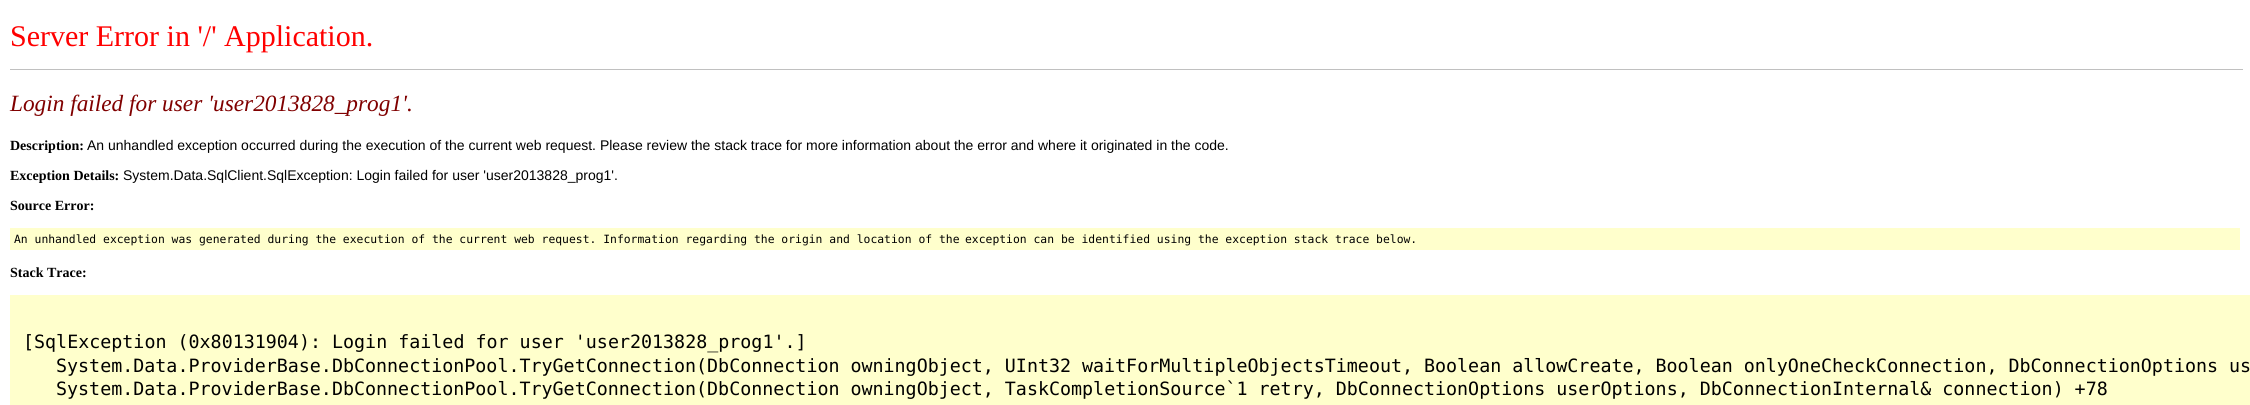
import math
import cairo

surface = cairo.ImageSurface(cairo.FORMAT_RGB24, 2250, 405)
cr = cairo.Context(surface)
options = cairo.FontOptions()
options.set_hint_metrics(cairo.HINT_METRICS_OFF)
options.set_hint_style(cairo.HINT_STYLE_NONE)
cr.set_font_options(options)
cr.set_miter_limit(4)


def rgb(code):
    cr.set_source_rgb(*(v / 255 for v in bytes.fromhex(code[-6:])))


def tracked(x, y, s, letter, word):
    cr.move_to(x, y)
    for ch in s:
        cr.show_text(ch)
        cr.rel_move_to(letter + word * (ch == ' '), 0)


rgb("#ffffff")
cr.paint()
for x, y, w, h, color in [
    (10, 69, 2233, 1, "#c0c0c0"),
    (10, 228, 2230, 22, "#ffffcc"),
    (10, 295, 2240, 110, "#ffffcc"),
]:
    rgb(color)
    cr.rectangle(x, y, w, h)
    cr.fill()
cr.select_font_face("Liberation Serif")
cr.set_font_size(30)
rgb("#ff0000")
cr.move_to(10, 46)
cr.show_text("Server Error in '/' Application.")
cr.select_font_face("Liberation Serif", cairo.FONT_SLANT_ITALIC)
cr.set_font_size(23.3)
rgb("#800000")
cr.move_to(10, 111)
cr.show_text("Login failed for user 'user2013828_prog1'.")
cr.select_font_face("Liberation Serif", cairo.FONT_SLANT_NORMAL, cairo.FONT_WEIGHT_BOLD)
cr.set_font_size(14)
rgb("#000000")
cr.move_to(10, 150)
cr.show_text("Description:")
cr.select_font_face("Liberation Sans")
cr.move_to(87, 150)
cr.show_text("An unhandled exception occurred during the execution of the current web request. Please review the stack trace for more information about the error and where it originated in the code.")
cr.select_font_face("Liberation Serif", cairo.FONT_SLANT_NORMAL, cairo.FONT_WEIGHT_BOLD)
cr.move_to(10, 180)
cr.show_text("Exception Details:")
cr.select_font_face("Liberation Sans")
cr.move_to(123, 180)
cr.show_text("System.Data.SqlClient.SqlException: Login failed for user 'user2013828_prog1'.")
cr.select_font_face("Liberation Serif", cairo.FONT_SLANT_NORMAL, cairo.FONT_WEIGHT_BOLD)
cr.move_to(10, 210)
cr.show_text("Source Error:")
cr.select_font_face("DejaVu Sans Mono")
cr.set_font_size(11.38)
cr.move_to(14, 243)
cr.show_text("An unhandled exception was generated during the execution of the current web request. Information regarding the origin and location of the")
cr.move_to(965, 243)
cr.show_text("exception can be identified using the exception stack trace below.")
cr.select_font_face("Liberation Serif", cairo.FONT_SLANT_NORMAL, cairo.FONT_WEIGHT_BOLD)
cr.set_font_size(14)
cr.move_to(10, 277)
cr.show_text("Stack Trace:")
cr.select_font_face("DejaVu Sans Mono")
cr.set_font_size(18.33)
cr.move_to(23, 348)
cr.show_text("[SqlException (0x80131904): Login failed for user 'user2013828_prog1'.]")
tracked(56, 372, "System.Data.ProviderBase.DbConnectionPool.TryGetConnection(DbConnection owningObject, UInt32 waitForMultipleObjectsTimeout, Boolean allowCreate, Boolean onlyOneCheckConnection, DbConnectionOptions us", 0, -0.1)
tracked(56, 395, "System.Data.ProviderBase.DbConnectionPool.TryGetConnection(DbConnection owningObject, TaskCompletionSource`1 retry, DbConnectionOptions userOptions, DbConnectionInternal& connection) +78", 0, -0.1)
surface.write_to_png("page.png")
